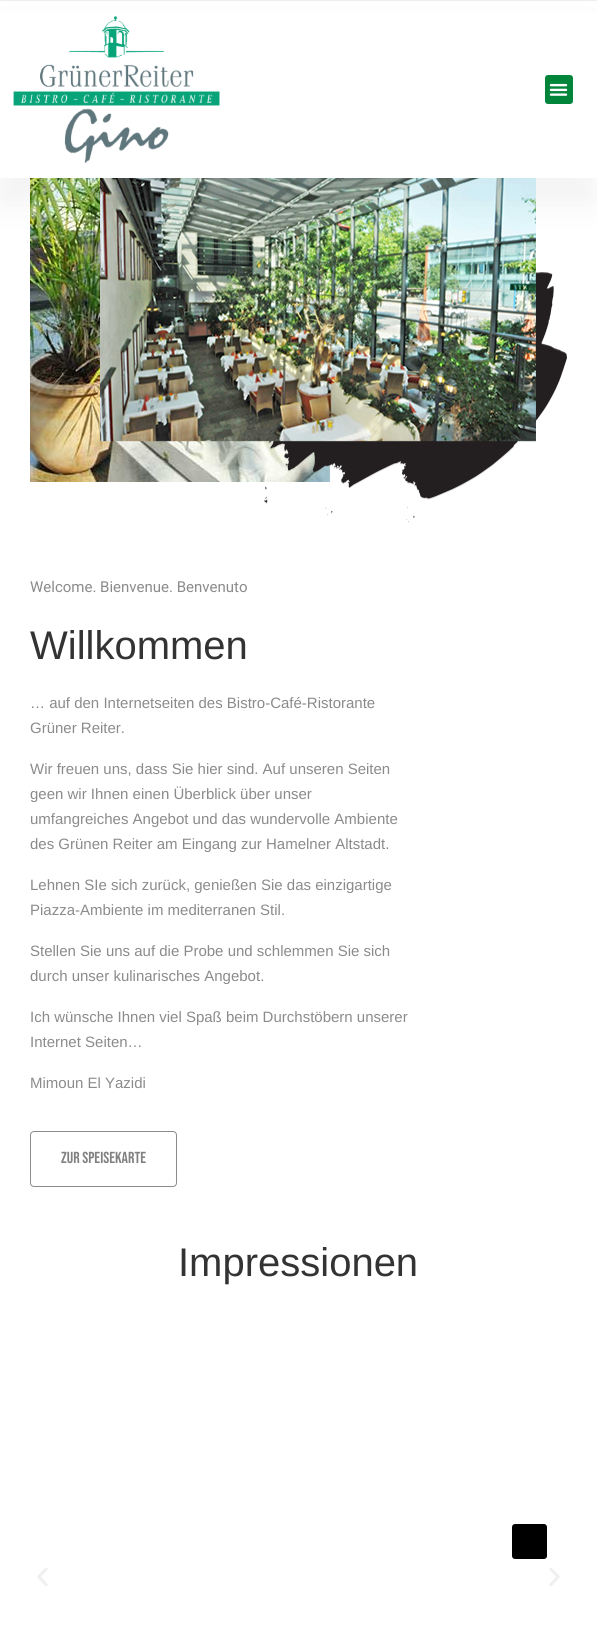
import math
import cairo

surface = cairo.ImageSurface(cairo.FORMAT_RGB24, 597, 1636)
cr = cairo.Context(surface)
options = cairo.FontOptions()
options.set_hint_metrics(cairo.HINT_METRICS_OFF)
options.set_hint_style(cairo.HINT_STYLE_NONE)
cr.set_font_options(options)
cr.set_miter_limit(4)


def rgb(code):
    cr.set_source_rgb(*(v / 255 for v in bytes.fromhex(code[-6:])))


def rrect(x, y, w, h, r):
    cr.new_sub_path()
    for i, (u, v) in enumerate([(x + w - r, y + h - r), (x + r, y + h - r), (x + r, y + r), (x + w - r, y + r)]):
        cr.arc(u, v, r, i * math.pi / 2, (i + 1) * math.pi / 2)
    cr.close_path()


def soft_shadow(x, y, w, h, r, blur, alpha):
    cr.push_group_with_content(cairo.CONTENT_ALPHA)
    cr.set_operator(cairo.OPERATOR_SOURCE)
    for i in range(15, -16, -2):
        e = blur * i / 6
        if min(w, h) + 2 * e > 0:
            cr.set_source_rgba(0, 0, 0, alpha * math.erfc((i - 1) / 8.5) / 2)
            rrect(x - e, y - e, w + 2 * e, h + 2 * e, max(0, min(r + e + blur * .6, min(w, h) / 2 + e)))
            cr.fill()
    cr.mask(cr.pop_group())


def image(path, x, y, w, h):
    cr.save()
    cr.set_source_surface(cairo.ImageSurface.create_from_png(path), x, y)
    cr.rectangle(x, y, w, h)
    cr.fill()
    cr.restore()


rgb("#ffffff")
cr.paint()
image("img/3.png", 30, 178, 300, 304)
image("img/4.png", 100, 178, 467, 345)
rgb("#000000")
soft_shadow(-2, 26, 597, 178, 0, 16.5, 0.05)
rgb("#ffffff")
cr.rectangle(0, 12, 597, 166)
cr.fill()
rgb("#eeeeee")
cr.rectangle(0, 0, 597, 1)
cr.fill()
image("img/1.png", 13, 16, 207, 147)
rgb("#01853a")
rrect(545, 75, 28, 29, 3)
cr.fill()
image("img/2.png", 549, 83, 19, 13)
rrect(30.5, 1131.5, 146, 55, 3.5)
rgb("#8b8b8b")
cr.set_line_width(1)
cr.stroke()
image("img/5.png", 37, 1567, 11, 20)
image("img/6.png", 549, 1567, 11, 20)
rgb("#000000")
rrect(512, 1524, 35, 35, 3)
cr.fill()
cr.select_font_face("Roboto")
cr.set_font_size(15)
rgb("#8b8b8b")
cr.move_to(30, 592)
cr.show_text("Welcome. Bienvenue. Benvenuto")
cr.select_font_face("Liberation Sans")
cr.set_font_size(40)
rgb("#333333")
cr.move_to(30, 659)
cr.show_text("Willkommen")
cr.set_font_size(15)
rgb("#8b8b8b")
for x, y, s in [
    (30, 708, "… auf den Internetseiten des Bistro-Café-Ristorante"),
    (30, 733, "Grüner Reiter."),
    (30, 774, "Wir freuen uns, dass Sie hier sind. Auf unseren Seiten"),
    (30, 799, "geen wir Ihnen einen Überblick über unser"),
    (30, 824, "umfangreiches Angebot und das wundervolle Ambiente"),
    (30, 849, "des Grünen Reiter am Eingang zur Hamelner Altstadt."),
    (30, 890, "Lehnen SIe sich zurück, genießen Sie das einzigartige"),
    (30, 915, "Piazza-Ambiente im mediterranen Stil."),
    (30, 956, "Stellen Sie uns auf die Probe und schlemmen Sie sich"),
    (30, 981, "durch unser kulinarisches Angebot."),
    (30, 1022, "Ich wünsche Ihnen viel Spaß beim Durchstöbern unserer"),
    (30, 1047, "Internet Seiten…"),
    (30, 1088, "Mimoun El Yazidi"),
]:
    cr.move_to(x, y)
    cr.show_text(s)
cr.select_font_face("Bebas Neue")
cr.set_font_size(16)
rgb("#818181")
cr.move_to(61, 1163)
cr.show_text("Zur Speisekarte")
cr.select_font_face("Liberation Sans")
cr.set_font_size(40)
rgb("#333333")
cr.move_to(178, 1276)
cr.show_text("Impressionen")
surface.write_to_png("page.png")
